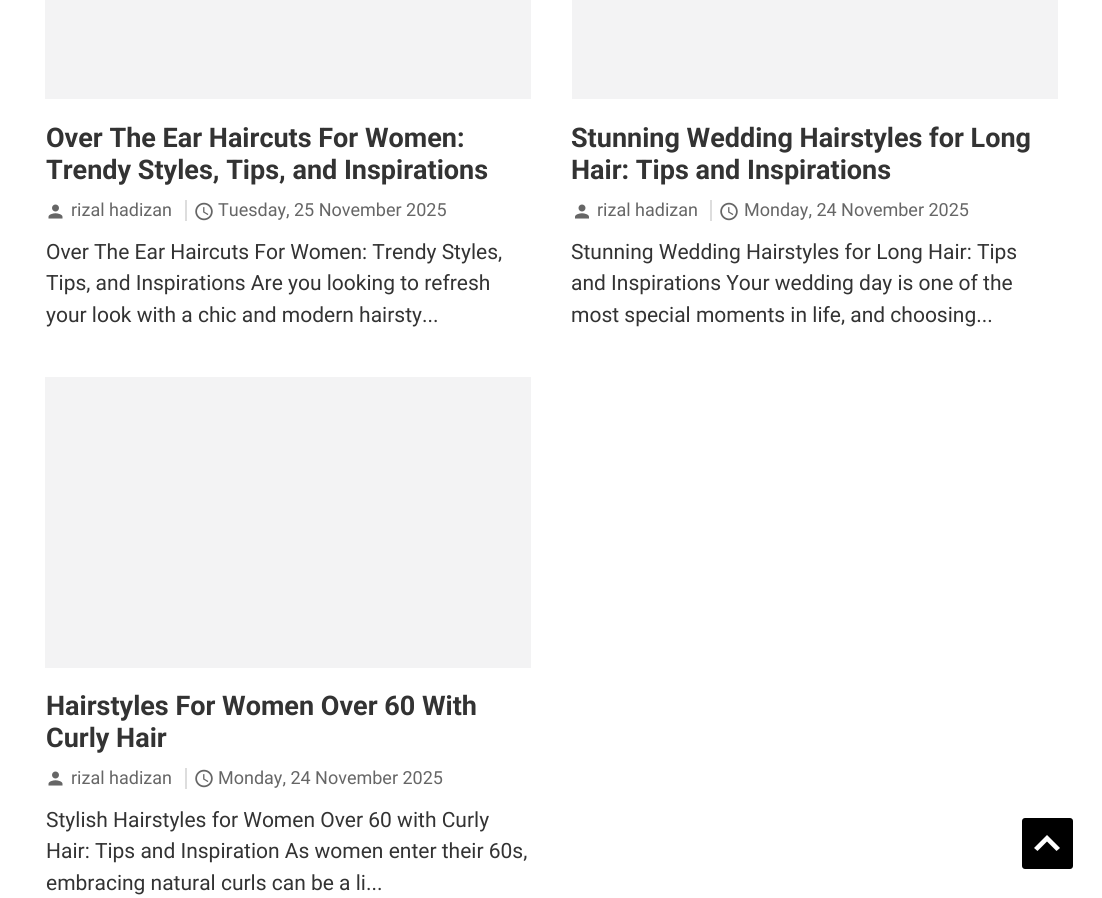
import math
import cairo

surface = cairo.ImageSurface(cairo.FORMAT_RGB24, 1102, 898)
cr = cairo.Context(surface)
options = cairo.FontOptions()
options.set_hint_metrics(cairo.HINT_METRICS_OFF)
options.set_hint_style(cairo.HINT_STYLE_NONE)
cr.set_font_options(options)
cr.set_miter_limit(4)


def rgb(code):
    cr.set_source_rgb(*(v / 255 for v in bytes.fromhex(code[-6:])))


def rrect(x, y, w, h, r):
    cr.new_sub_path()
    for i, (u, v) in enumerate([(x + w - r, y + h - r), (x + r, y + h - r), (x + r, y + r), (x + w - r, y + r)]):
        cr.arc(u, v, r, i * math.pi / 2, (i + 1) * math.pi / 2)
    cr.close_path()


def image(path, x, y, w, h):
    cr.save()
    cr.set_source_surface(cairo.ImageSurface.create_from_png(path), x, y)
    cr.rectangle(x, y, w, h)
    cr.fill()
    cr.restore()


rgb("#ffffff")
cr.paint()
rgb("#f3f3f4")
cr.rectangle(45, 0, 486, 99)
cr.fill()
image("img/1.png", 48, 204, 15, 15)
rgb("#dddddd")
cr.rectangle(185, 200, 2, 21)
cr.fill()
image("img/2.png", 195, 202, 18, 19)
rgb("#f3f3f4")
cr.rectangle(572, 0, 486, 99)
cr.fill()
image("img/3.png", 575, 204, 14, 15)
rgb("#dddddd")
cr.rectangle(710, 200, 2, 21)
cr.fill()
image("img/2.png", 720, 202, 18, 19)
rgb("#f3f3f4")
cr.rectangle(45, 377, 486, 291)
cr.fill()
image("img/1.png", 48, 771, 15, 15)
rgb("#dddddd")
cr.rectangle(185, 768, 2, 21)
cr.fill()
image("img/2.png", 195, 769, 18, 19)
rgb("#000000")
rrect(1022, 818, 51, 51, 3)
cr.fill()
rgb("#ffffff")
cr.new_path()
cr.move_to(1034, 848)
cr.line_to(1037.5, 851)
cr.line_to(1047, 841.5)
cr.line_to(1056.5, 851)
cr.line_to(1060, 848)
cr.line_to(1047, 835)
cr.close_path()
cr.fill()
cr.select_font_face("Roboto", cairo.FONT_SLANT_NORMAL, cairo.FONT_WEIGHT_BOLD)
cr.set_font_size(27)
rgb("#333333")
cr.move_to(46, 147)
cr.show_text("Over The Ear Haircuts For Women:")
cr.move_to(46, 179)
cr.show_text("Trendy Styles, Tips, and Inspirations")
cr.select_font_face("Roboto")
cr.set_font_size(18)
rgb("#666666")
cr.move_to(71, 216)
cr.show_text("rizal hadizan")
cr.move_to(218, 216)
cr.show_text("Tuesday, 25 November 2025")
cr.set_font_size(21)
rgb("#333333")
for x, y, s in [
    (46, 259, "Over The Ear Haircuts For Women: Trendy Styles,"),
    (46, 290, "Tips, and Inspirations Are you looking to refresh"),
    (46, 322, "your look with a chic and modern hairsty..."),
]:
    cr.move_to(x, y)
    cr.show_text(s)
cr.select_font_face("Roboto", cairo.FONT_SLANT_NORMAL, cairo.FONT_WEIGHT_BOLD)
cr.set_font_size(27)
cr.move_to(571, 147)
cr.show_text("Stunning Wedding Hairstyles for Long")
cr.move_to(571, 179)
cr.show_text("Hair: Tips and Inspirations")
cr.select_font_face("Roboto")
cr.set_font_size(18)
rgb("#666666")
cr.move_to(597, 216)
cr.show_text("rizal hadizan")
cr.move_to(744, 216)
cr.show_text("Monday, 24 November 2025")
cr.set_font_size(21)
rgb("#333333")
for x, y, s in [
    (571, 259, "Stunning Wedding Hairstyles for Long Hair: Tips"),
    (571, 290, "and Inspirations Your wedding day is one of the"),
    (571, 322, "most special moments in life, and choosing..."),
]:
    cr.move_to(x, y)
    cr.show_text(s)
cr.select_font_face("Roboto", cairo.FONT_SLANT_NORMAL, cairo.FONT_WEIGHT_BOLD)
cr.set_font_size(27)
cr.move_to(46, 715)
cr.show_text("Hairstyles For Women Over 60 With")
cr.move_to(46, 747)
cr.show_text("Curly Hair")
cr.select_font_face("Roboto")
cr.set_font_size(18)
rgb("#666666")
cr.move_to(71, 784)
cr.show_text("rizal hadizan")
cr.move_to(218, 784)
cr.show_text("Monday, 24 November 2025")
cr.set_font_size(21)
rgb("#333333")
for x, y, s in [
    (46, 827, "Stylish Hairstyles for Women Over 60 with Curly"),
    (46, 858, "Hair: Tips and Inspiration As women enter their 60s,"),
    (46, 890, "embracing natural curls can be a li..."),
]:
    cr.move_to(x, y)
    cr.show_text(s)
surface.write_to_png("page.png")
